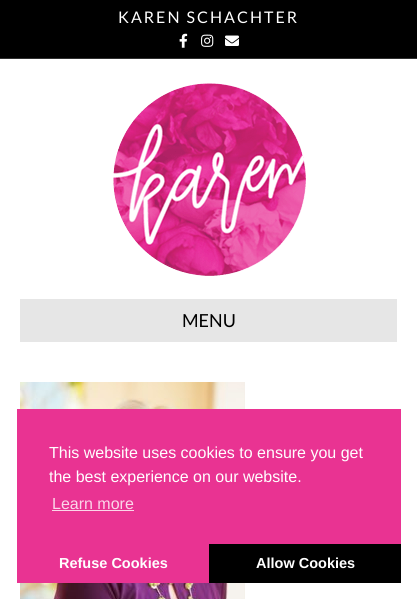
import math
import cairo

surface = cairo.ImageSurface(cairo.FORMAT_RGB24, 417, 599)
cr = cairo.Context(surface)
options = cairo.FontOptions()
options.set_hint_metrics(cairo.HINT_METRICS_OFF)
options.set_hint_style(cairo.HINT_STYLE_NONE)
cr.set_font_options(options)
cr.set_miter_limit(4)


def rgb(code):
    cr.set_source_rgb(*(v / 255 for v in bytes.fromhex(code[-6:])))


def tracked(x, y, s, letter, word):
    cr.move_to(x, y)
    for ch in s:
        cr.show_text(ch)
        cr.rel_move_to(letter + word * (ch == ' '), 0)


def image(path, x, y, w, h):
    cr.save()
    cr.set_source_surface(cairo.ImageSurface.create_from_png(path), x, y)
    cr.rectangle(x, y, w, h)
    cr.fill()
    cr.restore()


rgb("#ffffff")
cr.paint()
rgb("#000000")
cr.rectangle(0, 0, 417, 58)
cr.fill()
rgb("#303030")
cr.rectangle(0, 58, 417, 1)
cr.fill()
image("img/1.png", 179, 33, 9, 15)
image("img/2.png", 201, 34, 13, 13)
image("img/3.png", 225, 35, 14, 11)
image("img/4.png", 113, 83, 193, 193)
rgb("#e6e6e6")
cr.rectangle(20, 299, 377, 43)
cr.fill()
image("img/5.png", 20, 382, 225, 217)
for x, y, w, h, color in [
    (17, 409, 384, 174, "#e93392"),
    (52, 510, 82, 1, "#fbd6e9"),
    (209, 544, 192, 39, "#000000"),
]:
    rgb(color)
    cr.rectangle(x, y, w, h)
    cr.fill()
cr.select_font_face("Lato")
cr.set_font_size(16)
rgb("#ffffff")
tracked(118, 23, "KAREN SCHACHTER", 2, 0)
cr.set_font_size(18)
rgb("#000000")
cr.move_to(182, 327)
cr.show_text("MENU")
cr.select_font_face("Liberation Sans")
cr.set_font_size(16)
rgb("#ffffff")
cr.move_to(49, 458)
cr.show_text("This website uses cookies to ensure you get")
cr.move_to(49, 482)
cr.show_text("the best experience on our website.")
rgb("#fbd6e9")
cr.move_to(52, 509)
cr.show_text("Learn more")
cr.select_font_face("Liberation Sans", cairo.FONT_SLANT_NORMAL, cairo.FONT_WEIGHT_BOLD)
cr.set_font_size(14.5)
rgb("#ffffff")
cr.move_to(59, 568)
cr.show_text("Refuse Cookies")
cr.move_to(256, 568)
cr.show_text("Allow Cookies")
surface.write_to_png("page.png")
